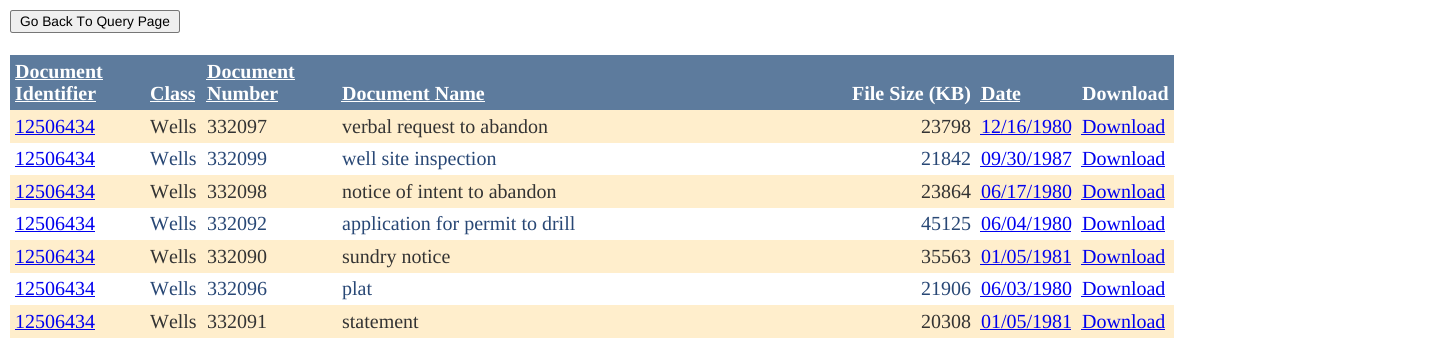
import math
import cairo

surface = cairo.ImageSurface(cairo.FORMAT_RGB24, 1453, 354)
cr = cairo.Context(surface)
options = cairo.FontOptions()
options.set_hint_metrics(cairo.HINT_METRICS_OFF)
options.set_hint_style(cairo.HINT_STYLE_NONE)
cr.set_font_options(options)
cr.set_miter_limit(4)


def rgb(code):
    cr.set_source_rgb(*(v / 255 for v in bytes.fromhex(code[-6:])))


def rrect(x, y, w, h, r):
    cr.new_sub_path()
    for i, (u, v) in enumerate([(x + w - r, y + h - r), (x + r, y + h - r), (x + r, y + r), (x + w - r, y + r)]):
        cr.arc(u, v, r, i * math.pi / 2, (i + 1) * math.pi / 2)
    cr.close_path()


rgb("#ffffff")
cr.paint()
rgb("#efefef")
rrect(10.5, 10.5, 169, 22, 2)
cr.fill_preserve()
rgb("#767676")
cr.set_line_width(1)
cr.stroke()
for x, y, w, h, color in [
    (10, 55, 1164, 55, "#5d7b9d"),
    (15, 79, 88, 1, "#ffffff"),
    (15, 101, 81, 1, "#ffffff"),
    (150, 101, 45, 1, "#ffffff"),
    (206, 79, 89, 1, "#ffffff"),
    (206, 101, 72, 1, "#ffffff"),
    (341, 101, 144, 1, "#ffffff"),
    (980, 101, 40, 1, "#ffffff"),
    (10, 110, 1164, 33, "#ffeecc"),
    (15, 134, 80, 1, "#0000ee"),
    (980, 134, 91, 1, "#0000ee"),
    (1081, 134, 84, 1, "#0000ee"),
    (15, 166, 80, 1, "#0000ee"),
    (980, 166, 91, 1, "#0000ee"),
    (1081, 166, 84, 1, "#0000ee"),
    (10, 175, 1164, 33, "#ffeecc"),
    (15, 199, 80, 1, "#0000ee"),
    (980, 199, 91, 1, "#0000ee"),
    (1081, 199, 84, 1, "#0000ee"),
    (15, 231, 80, 1, "#0000ee"),
    (980, 231, 91, 1, "#0000ee"),
    (1081, 231, 84, 1, "#0000ee"),
    (10, 240, 1164, 33, "#ffeecc"),
    (15, 264, 80, 1, "#0000ee"),
    (980, 264, 91, 1, "#0000ee"),
    (1081, 264, 84, 1, "#0000ee"),
    (15, 296, 80, 1, "#0000ee"),
    (980, 296, 91, 1, "#0000ee"),
    (1081, 296, 84, 1, "#0000ee"),
    (10, 305, 1164, 33, "#ffeecc"),
    (15, 329, 80, 1, "#0000ee"),
    (980, 329, 91, 1, "#0000ee"),
    (1081, 329, 84, 1, "#0000ee"),
]:
    rgb(color)
    cr.rectangle(x, y, w, h)
    cr.fill()
cr.select_font_face("Liberation Sans")
cr.set_font_size(13.75)
rgb("#000000")
cr.move_to(20, 26)
cr.show_text("Go Back To Query Page")
cr.select_font_face("Liberation Serif", cairo.FONT_SLANT_NORMAL, cairo.FONT_WEIGHT_BOLD)
cr.set_font_size(20)
rgb("#ffffff")
for x, y, s in [
    (15, 78, "Document"),
    (15, 100, "Identifier"),
    (150, 100, "Class"),
    (207, 78, "Document"),
    (207, 100, "Number"),
    (342, 100, "Document Name"),
    (852, 100, "File Size (KB)"),
    (981, 100, "Date"),
    (1082, 100, "Download"),
]:
    cr.move_to(x, y)
    cr.show_text(s)
cr.select_font_face("Liberation Serif")
rgb("#0000ee")
cr.move_to(15, 133)
cr.show_text("12506434")
rgb("#333333")
for x, y, s in [
    (150, 133, "Wells"),
    (207, 133, "332097"),
    (342, 133, "verbal request to abandon"),
    (921, 133, "23798"),
]:
    cr.move_to(x, y)
    cr.show_text(s)
rgb("#0000ee")
for x, y, s in [
    (981, 133, "12/16/1980"),
    (1082, 133, "Download"),
    (15, 165, "12506434"),
]:
    cr.move_to(x, y)
    cr.show_text(s)
rgb("#284775")
for x, y, s in [
    (150, 165, "Wells"),
    (207, 165, "332099"),
    (342, 165, "well site inspection"),
    (921, 165, "21842"),
]:
    cr.move_to(x, y)
    cr.show_text(s)
rgb("#0000ee")
for x, y, s in [
    (981, 165, "09/30/1987"),
    (1082, 165, "Download"),
    (15, 198, "12506434"),
]:
    cr.move_to(x, y)
    cr.show_text(s)
rgb("#333333")
for x, y, s in [
    (150, 198, "Wells"),
    (207, 198, "332098"),
    (342, 198, "notice of intent to abandon"),
    (921, 198, "23864"),
]:
    cr.move_to(x, y)
    cr.show_text(s)
rgb("#0000ee")
for x, y, s in [
    (981, 198, "06/17/1980"),
    (1082, 198, "Download"),
    (15, 230, "12506434"),
]:
    cr.move_to(x, y)
    cr.show_text(s)
rgb("#284775")
for x, y, s in [
    (150, 230, "Wells"),
    (207, 230, "332092"),
    (342, 230, "application for permit to drill"),
    (921, 230, "45125"),
]:
    cr.move_to(x, y)
    cr.show_text(s)
rgb("#0000ee")
for x, y, s in [
    (981, 230, "06/04/1980"),
    (1082, 230, "Download"),
    (15, 263, "12506434"),
]:
    cr.move_to(x, y)
    cr.show_text(s)
rgb("#333333")
for x, y, s in [
    (150, 263, "Wells"),
    (207, 263, "332090"),
    (342, 263, "sundry notice"),
    (921, 263, "35563"),
]:
    cr.move_to(x, y)
    cr.show_text(s)
rgb("#0000ee")
for x, y, s in [
    (981, 263, "01/05/1981"),
    (1082, 263, "Download"),
    (15, 295, "12506434"),
]:
    cr.move_to(x, y)
    cr.show_text(s)
rgb("#284775")
for x, y, s in [
    (150, 295, "Wells"),
    (207, 295, "332096"),
    (342, 295, "plat"),
    (921, 295, "21906"),
]:
    cr.move_to(x, y)
    cr.show_text(s)
rgb("#0000ee")
for x, y, s in [
    (981, 295, "06/03/1980"),
    (1082, 295, "Download"),
    (15, 328, "12506434"),
]:
    cr.move_to(x, y)
    cr.show_text(s)
rgb("#333333")
for x, y, s in [
    (150, 328, "Wells"),
    (207, 328, "332091"),
    (342, 328, "statement"),
    (921, 328, "20308"),
]:
    cr.move_to(x, y)
    cr.show_text(s)
rgb("#0000ee")
cr.move_to(981, 328)
cr.show_text("01/05/1981")
cr.move_to(1082, 328)
cr.show_text("Download")
surface.write_to_png("page.png")
